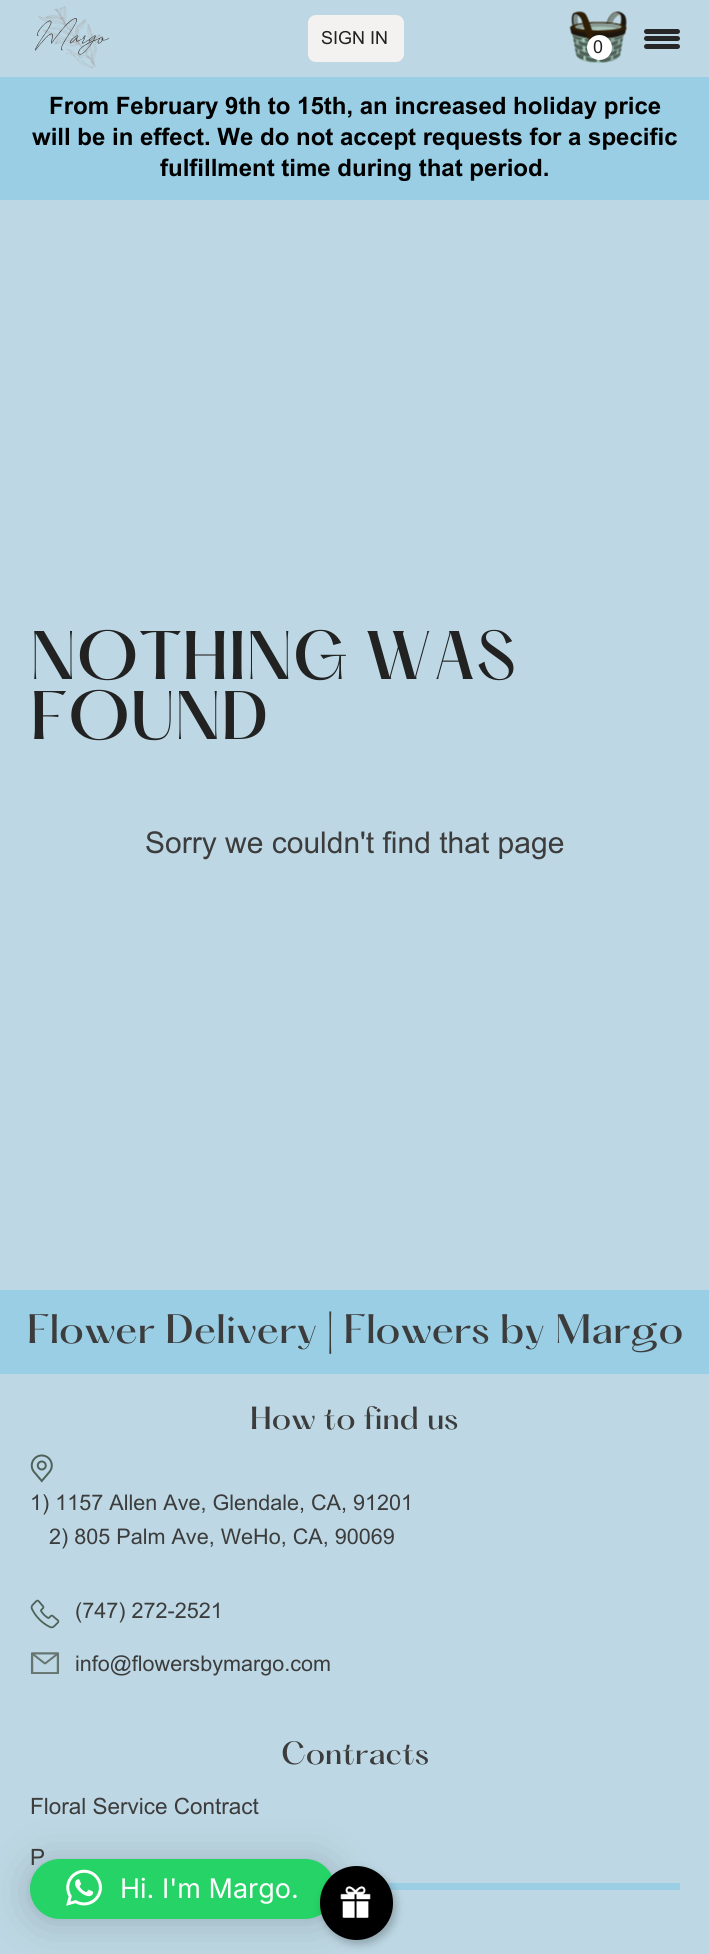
import math
import cairo

surface = cairo.ImageSurface(cairo.FORMAT_RGB24, 709, 1954)
cr = cairo.Context(surface)
options = cairo.FontOptions()
options.set_hint_metrics(cairo.HINT_METRICS_OFF)
options.set_hint_style(cairo.HINT_STYLE_NONE)
cr.set_font_options(options)
cr.set_miter_limit(4)


def rgb(code):
    cr.set_source_rgb(*(v / 255 for v in bytes.fromhex(code[-6:])))


def rrect(x, y, w, h, r):
    cr.new_sub_path()
    for i, (u, v) in enumerate([(x + w - r, y + h - r), (x + r, y + h - r), (x + r, y + r), (x + w - r, y + r)]):
        cr.arc(u, v, r, i * math.pi / 2, (i + 1) * math.pi / 2)
    cr.close_path()


def soft_shadow(x, y, w, h, r, blur, alpha):
    cr.push_group_with_content(cairo.CONTENT_ALPHA)
    cr.set_operator(cairo.OPERATOR_SOURCE)
    for i in range(15, -16, -2):
        e = blur * i / 6
        if min(w, h) + 2 * e > 0:
            cr.set_source_rgba(0, 0, 0, alpha * math.erfc((i - 1) / 8.5) / 2)
            rrect(x - e, y - e, w + 2 * e, h + 2 * e, max(0, min(r + e + blur * .6, min(w, h) / 2 + e)))
            cr.fill()
    cr.mask(cr.pop_group())


def image(path, x, y, w, h):
    cr.save()
    cr.set_source_surface(cairo.ImageSurface.create_from_png(path), x, y)
    cr.rectangle(x, y, w, h)
    cr.fill()
    cr.restore()


rgb("#bdd8e4")
cr.paint()
image("img/1.png", 35, 6, 75, 63)
rgb("#f4f1f1")
rrect(308, 15, 96, 47, 8)
cr.fill()
rgb("#262626")
rrect(644, 29, 36, 5, 2.5)
cr.fill()
rrect(644, 36, 36, 5, 2.5)
cr.fill()
rrect(644, 44, 36, 5, 2.5)
cr.fill()
image("img/2.png", 569, 11, 58, 53)
rgb("#ffffff")
cr.arc(599.5, 47.5, 12.5, 0, 2 * math.pi)
cr.fill()
rgb("#99cee5")
cr.rectangle(0, 77, 709, 123)
cr.fill()
cr.rectangle(0, 1290, 709, 84)
cr.fill()
image("img/3.png", 30, 1454, 23, 29)
image("img/4.png", 30, 1599, 30, 30)
image("img/5.png", 30, 1652, 30, 22)
cr.rectangle(30, 1883, 650, 7)
cr.fill()
rgb("#000000")
soft_shadow(30, 1862, 305, 60, 30, 24, 0.16)
soft_shadow(30, 1860, 305, 60, 30, 4.5, 0.06)
cr.select_font_face("Arial")
cr.set_font_size(18)
rgb("#222222")
cr.move_to(321, 44)
cr.show_text("SIGN IN")
cr.move_to(593, 53)
cr.show_text("0")
cr.select_font_face("Arial", cairo.FONT_SLANT_NORMAL, cairo.FONT_WEIGHT_BOLD)
cr.set_font_size(24)
rgb("#000000")
for x, y, s in [
    (49, 114, "From February 9th to 15th, an increased holiday price"),
    (32, 145, "will be in effect. We do not accept requests for a specific"),
    (160, 176, "fulfillment time during that period."),
]:
    cr.move_to(x, y)
    cr.show_text(s)
cr.select_font_face("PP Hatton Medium")
cr.set_font_size(60)
rgb("#222222")
cr.move_to(30, 679)
cr.show_text("NOTHING WAS")
cr.move_to(30, 739)
cr.show_text("FOUND")
cr.select_font_face("Arial")
cr.set_font_size(30)
rgb("#3c3c3c")
cr.move_to(145, 853)
cr.show_text("Sorry we couldn't find that page")
cr.select_font_face("PP Hatton Medium")
cr.set_font_size(36)
cr.move_to(27, 1343)
cr.show_text("Flower Delivery | Flowers by Margo")
cr.set_font_size(28)
cr.move_to(250, 1429)
cr.show_text("How to find us")
cr.select_font_face("Arial")
cr.set_font_size(21.6)
for x, y, s in [
    (30, 1510, "1) 1157 Allen Ave, Glendale, CA, 91201"),
    (49, 1544, "2) 805 Palm Ave, WeHo, CA, 90069"),
    (75, 1618, "(747) 272-2521"),
    (75, 1671, "info@flowersbymargo.com"),
]:
    cr.move_to(x, y)
    cr.show_text(s)
cr.select_font_face("PP Hatton Medium")
cr.set_font_size(28)
cr.move_to(281, 1764)
cr.show_text("Contracts")
cr.select_font_face("Arial")
cr.set_font_size(22.5)
cr.move_to(30, 1814)
cr.show_text("Floral Service Contract")
cr.move_to(30, 1865)
cr.show_text("P")
rgb("#25d366")
rrect(30, 1859, 305, 60, 30)
cr.fill()
image("img/6.png", 66, 1869, 36, 37)
cr.select_font_face("Inter")
cr.set_font_size(27)
rgb("#ffffff")
cr.move_to(120, 1898)
cr.show_text("Hi. I'm Margo.")
rgb("#000000")
soft_shadow(323, 1871, 73, 73, 36.5, 4.5, 0.25)
rgb("#000000")
rrect(320, 1866, 73, 74, 36.5)
cr.fill()
image("img/7.png", 340, 1886, 31, 32)
surface.write_to_png("page.png")
